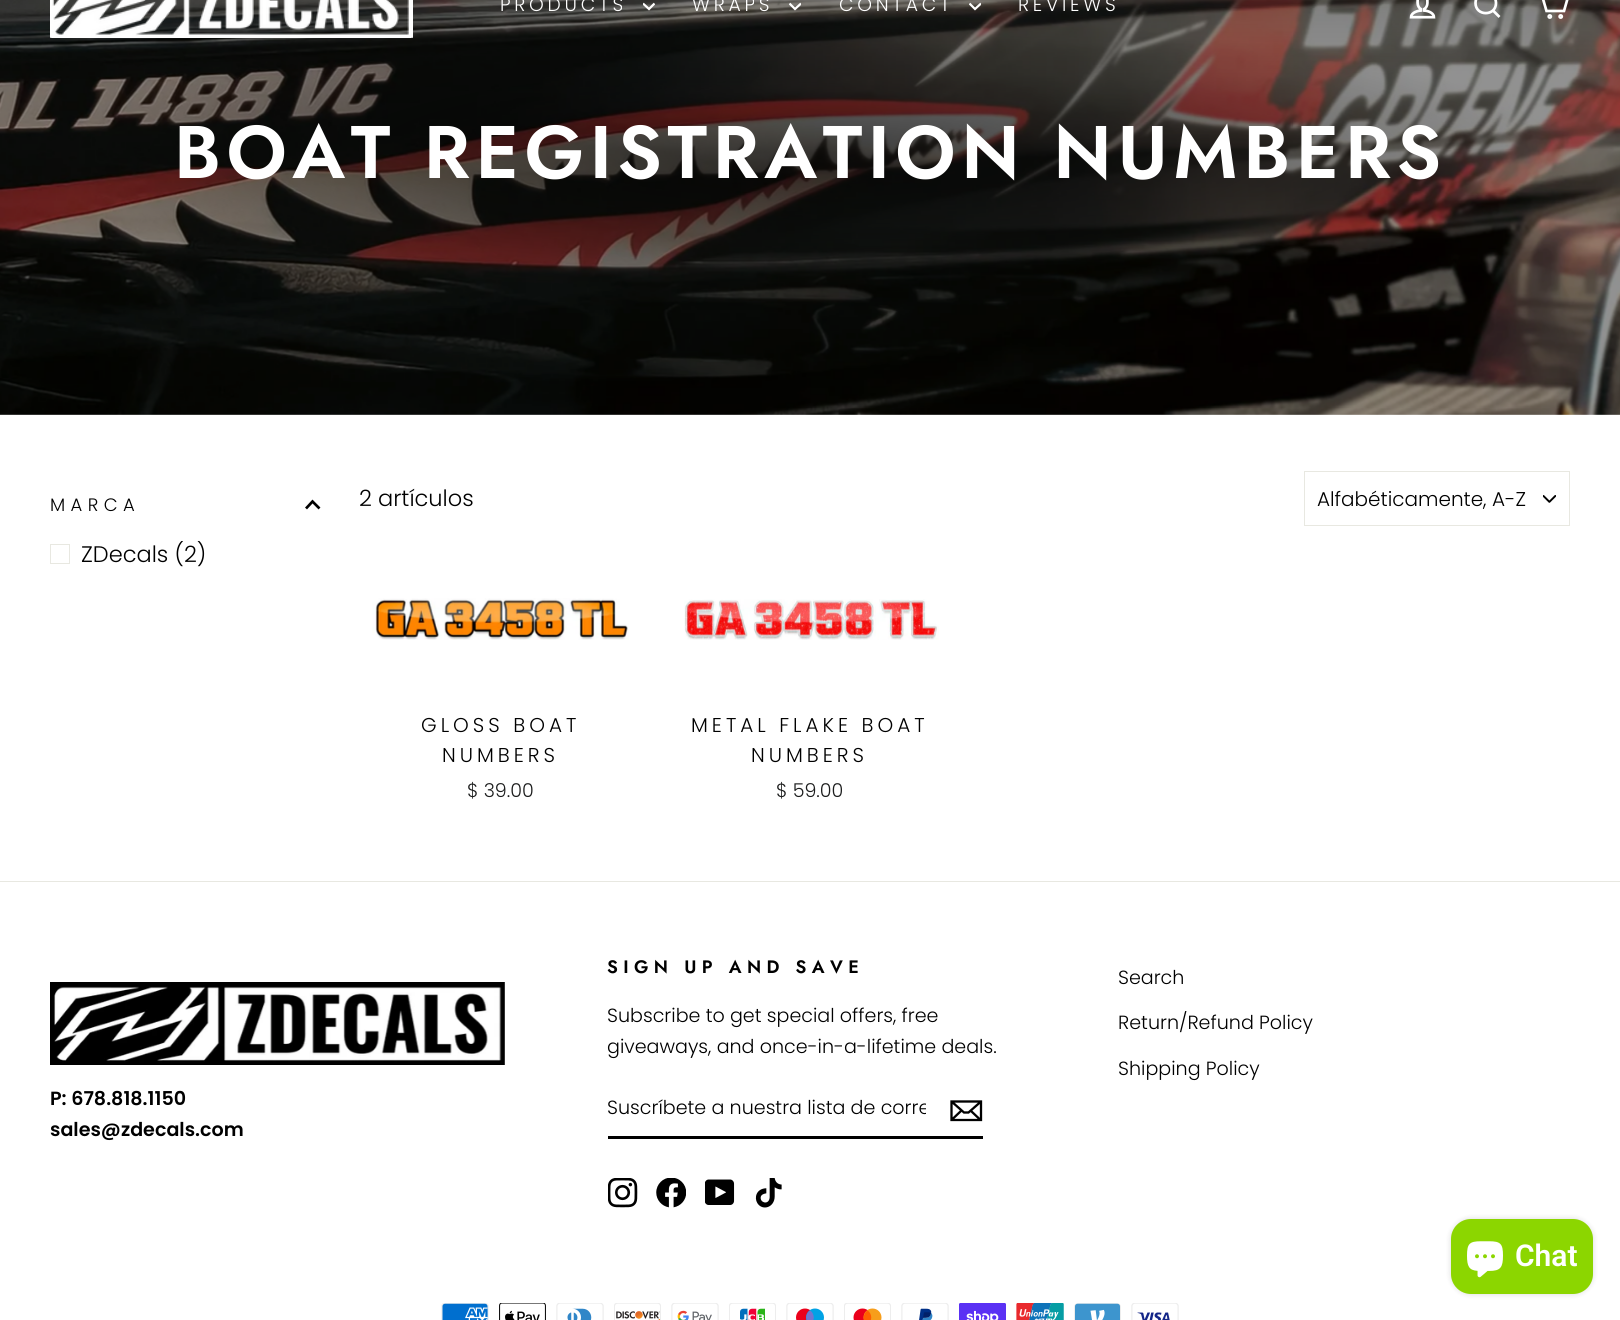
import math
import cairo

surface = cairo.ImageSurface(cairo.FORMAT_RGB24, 1620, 1320)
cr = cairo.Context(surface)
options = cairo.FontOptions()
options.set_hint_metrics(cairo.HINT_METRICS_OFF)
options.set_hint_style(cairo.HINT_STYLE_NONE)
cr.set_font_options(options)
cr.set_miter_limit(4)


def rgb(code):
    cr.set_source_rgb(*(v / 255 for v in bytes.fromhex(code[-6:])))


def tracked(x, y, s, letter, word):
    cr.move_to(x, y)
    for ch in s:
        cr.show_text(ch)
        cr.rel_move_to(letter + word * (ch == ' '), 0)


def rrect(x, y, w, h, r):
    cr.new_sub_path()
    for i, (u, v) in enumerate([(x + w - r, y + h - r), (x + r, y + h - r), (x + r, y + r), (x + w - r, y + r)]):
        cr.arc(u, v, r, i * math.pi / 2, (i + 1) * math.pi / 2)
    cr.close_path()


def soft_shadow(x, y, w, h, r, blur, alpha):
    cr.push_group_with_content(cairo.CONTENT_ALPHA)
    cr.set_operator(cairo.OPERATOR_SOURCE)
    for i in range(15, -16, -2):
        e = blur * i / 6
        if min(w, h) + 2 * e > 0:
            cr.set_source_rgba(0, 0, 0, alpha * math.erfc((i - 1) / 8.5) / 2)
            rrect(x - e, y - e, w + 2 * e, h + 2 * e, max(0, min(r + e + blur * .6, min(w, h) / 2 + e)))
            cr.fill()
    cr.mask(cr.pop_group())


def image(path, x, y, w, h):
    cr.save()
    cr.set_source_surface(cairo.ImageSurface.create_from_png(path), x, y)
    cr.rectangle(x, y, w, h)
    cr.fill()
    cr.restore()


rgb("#ffffff")
cr.paint()
image("img/3.png", 0, 0, 1620, 415)
image("img/1.png", 50, 0, 363, 38)
cr.save()
cr.rectangle(643, 0, 12, 13)
cr.clip()
cr.new_path()
cr.move_to(643, 3.5)
cr.line_to(649, 9)
cr.line_to(654.5, 3.5)
rgb("#ffffff")
cr.set_line_width(2.2)
cr.stroke()
cr.restore()
cr.save()
cr.rectangle(789, 0, 12, 13)
cr.clip()
cr.new_path()
cr.move_to(789.5, 3.5)
cr.line_to(795, 9)
cr.line_to(801, 3.5)
rgb("#ffffff")
cr.set_line_width(2.2)
cr.stroke()
cr.restore()
cr.save()
cr.rectangle(969, 0, 12, 13)
cr.clip()
cr.new_path()
cr.move_to(969.5, 3.5)
cr.line_to(975, 9)
cr.line_to(981, 3.5)
rgb("#ffffff")
cr.set_line_width(2.2)
cr.stroke()
cr.restore()
image("img/2.png", 1409, 0, 27, 19)
cr.new_path()
cr.move_to(1496, 3)
cr.curve_to(1496, 16.5, 1475.5, 16.5, 1475.5, 3)
cr.curve_to(1475.5, -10, 1496, -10, 1496, 3)
cr.close_path()
cr.move_to(1499.5, 17)
cr.line_to(1493, 10.5)
rgb("#ffffff")
cr.set_line_width(2.7)
cr.stroke()
cr.new_path()
cr.move_to(1542.5, -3)
cr.line_to(1568, -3)
cr.line_to(1564, 11)
cr.line_to(1546.5, 11)
cr.line_to(1541, -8)
cr.line_to(1536.5, -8)
cr.stroke()
cr.arc(1549.8, 16.5, 1.1, 0, 2 * math.pi)
cr.stroke()
cr.arc(1560.7, 16.5, 1.1, 0, 2 * math.pi)
cr.stroke()
cr.new_path()
cr.move_to(306, 508.5)
cr.line_to(312.5, 501.5)
cr.line_to(319.5, 508.5)
rgb("#000000")
cr.stroke()
cr.rectangle(50.5, 544.5, 19, 19)
rgb("#e8e8e1")
cr.set_line_width(1)
cr.stroke()
image("img/4.png", 1543, 495, 13, 8)
cr.rectangle(1304.5, 471.5, 265, 54)
cr.stroke()
image("img/5.png", 372, 598, 257, 42)
image("img/6.png", 684, 599, 255, 41)
cr.rectangle(0, 881, 1620, 1)
cr.fill()
rgb("#000000")
cr.rectangle(608, 1136, 375, 3)
cr.fill()
cr.new_path()
cr.move_to(981, 1120)
cr.line_to(951.5, 1120)
cr.line_to(951.5, 1101.5)
cr.line_to(981, 1101.5)
cr.close_path()
cr.move_to(951.5, 1101.5)
cr.line_to(964, 1112.5)
cr.line_to(968.5, 1112.5)
cr.line_to(981, 1101.5)
cr.move_to(961.5, 1110.5)
cr.line_to(952, 1119.5)
cr.move_to(980.5, 1120)
cr.line_to(970.5, 1110.5)
cr.set_line_width(2.3)
cr.stroke()
image("img/7.png", 608, 1178, 30, 30)
image("img/8.png", 656, 1178, 30, 30)
image("img/9.png", 705, 1179, 30, 26)
image("img/10.png", 755, 1178, 27, 30)
image("img/11.png", 50, 982, 455, 83)
image("img/12.png", 441, 1303, 48, 17)
image("img/13.png", 499, 1303, 47, 17)
image("img/14.png", 556, 1303, 48, 17)
image("img/15.png", 614, 1303, 47, 17)
image("img/16.png", 671, 1303, 48, 17)
image("img/17.png", 729, 1303, 47, 17)
image("img/18.png", 786, 1303, 48, 17)
image("img/19.png", 844, 1303, 47, 17)
image("img/20.png", 901, 1303, 48, 17)
image("img/21.png", 959, 1303, 47, 17)
image("img/22.png", 1016, 1303, 48, 17)
image("img/23.png", 1074, 1303, 47, 17)
image("img/24.png", 1131, 1303, 48, 17)
rgb("#000000")
soft_shadow(1451, 1219, 142, 75, 20, 3, 0.15)
rgb("#8cd600")
rrect(1451, 1219, 142, 75, 20)
cr.fill()
image("img/25.png", 1467, 1241, 36, 37)
cr.select_font_face("Poppins Light")
cr.set_font_size(18.75)
rgb("#ffffff")
for x, y, s in [
    (500, 11, "PRODUCTS"),
    (692, 11, "WRAPS"),
    (839, 11, "CONTACT"),
    (1018, 11, "REVIEWS"),
]:
    tracked(x, y, s, 3.75, 0)
cr.select_font_face("Jost SemiBold")
cr.set_font_size(74.3)
tracked(174, 178, "BOAT REGISTRATION NUMBERS", 5.6, 0)
cr.select_font_face("Poppins Light")
cr.set_font_size(18)
rgb("#000000")
tracked(50, 511, "MARCA", 5.4, 0)
cr.set_font_size(22.5)
cr.move_to(81, 562)
cr.show_text("ZDecals (2)")
cr.move_to(359, 506)
cr.show_text("2 artículos")
cr.set_font_size(20)
cr.move_to(1317, 506)
cr.show_text("Alfabéticamente, A-Z")
tracked(421, 732, "GLOSS BOAT", 4, 0)
tracked(442, 762, "NUMBERS", 4, 0)
cr.set_font_size(19.1)
rgb("#1c1d1d")
cr.move_to(467, 797)
cr.show_text("$ 39.00")
cr.set_font_size(20)
rgb("#000000")
tracked(691, 732, "METAL FLAKE BOAT", 4, 0)
tracked(751, 762, "NUMBERS", 4, 0)
cr.set_font_size(19.1)
rgb("#1c1d1d")
cr.move_to(776, 797)
cr.show_text("$ 59.00")
cr.select_font_face("Jost SemiBold")
cr.set_font_size(18)
rgb("#000000")
tracked(607, 973, "SIGN UP AND SAVE", 5.4, 0)
cr.select_font_face("Poppins Light")
cr.set_font_size(19.1)
cr.move_to(607, 1022)
cr.show_text("Subscribe to get special offers, free")
cr.move_to(607, 1053)
cr.show_text("giveaways, and once-in-a-lifetime deals.")
cr.save()
cr.rectangle(608, 1094, 318, 29)
cr.clip()
cr.move_to(607, 1114)
cr.show_text("Suscríbete a nuestra lista de corre")
cr.restore()
for x, y, s in [
    (1118, 984, "Search"),
    (1118, 1029, "Return/Refund Policy"),
    (1118, 1075, "Shipping Policy"),
]:
    cr.move_to(x, y)
    cr.show_text(s)
cr.select_font_face("Poppins SemiBold")
cr.move_to(50, 1105)
cr.show_text("P: 678.818.1150")
cr.move_to(50, 1136)
cr.show_text("sales@zdecals.com")
cr.select_font_face("Roboto SemiBold")
cr.set_font_size(30)
rgb("#ffffff")
cr.move_to(1515, 1266)
cr.show_text("Chat")
surface.write_to_png("page.png")
